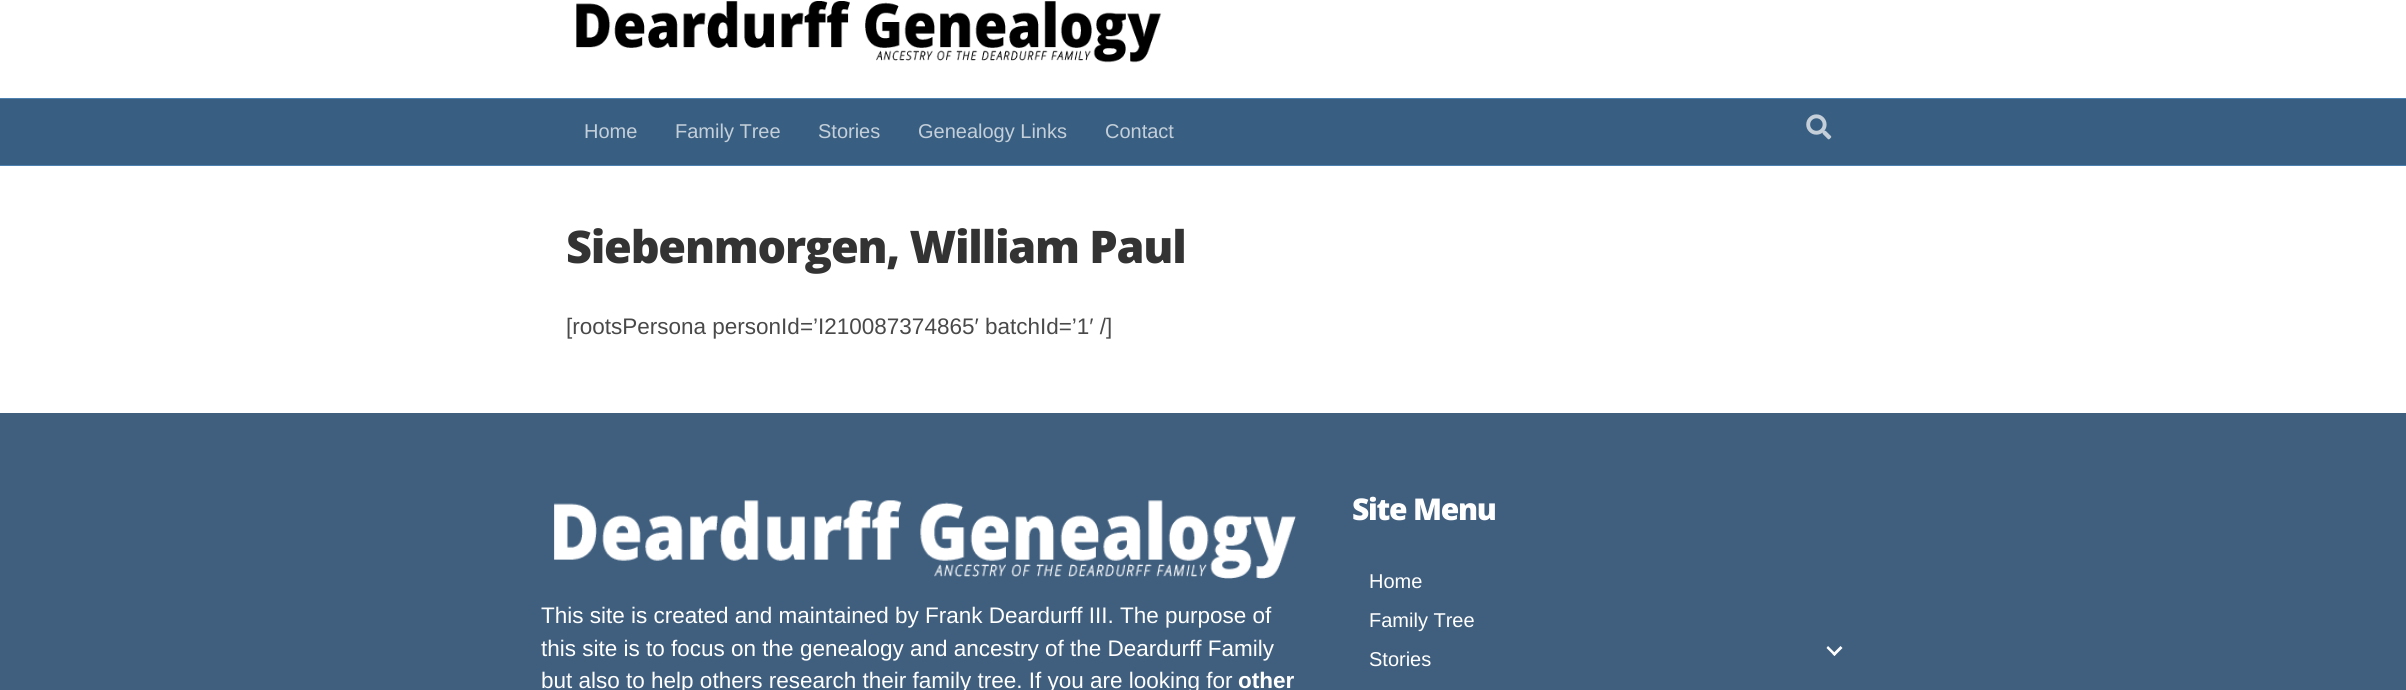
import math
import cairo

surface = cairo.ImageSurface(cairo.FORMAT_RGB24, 2406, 690)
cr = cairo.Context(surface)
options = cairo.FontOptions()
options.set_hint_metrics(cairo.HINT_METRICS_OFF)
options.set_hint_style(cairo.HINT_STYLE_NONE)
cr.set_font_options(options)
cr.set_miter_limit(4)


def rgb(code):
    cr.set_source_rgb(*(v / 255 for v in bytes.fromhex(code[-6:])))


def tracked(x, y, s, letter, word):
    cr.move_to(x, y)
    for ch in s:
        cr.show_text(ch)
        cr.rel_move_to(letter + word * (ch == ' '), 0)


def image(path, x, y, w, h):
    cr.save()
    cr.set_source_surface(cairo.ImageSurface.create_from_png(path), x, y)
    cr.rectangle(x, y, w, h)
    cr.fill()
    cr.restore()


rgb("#ffffff")
cr.paint()
image("img/1.png", 576, 1, 586, 62)
for x, y, w, h, color in [
    (0, 99, 2406, 66, "#385f82"),
    (0, 98, 2406, 1, "#4c81b0"),
    (0, 165, 2406, 1, "#4c81b0"),
]:
    rgb(color)
    cr.rectangle(x, y, w, h)
    cr.fill()
image("img/2.png", 1806, 114, 26, 26)
rgb("#405f7f")
cr.rectangle(0, 413, 2406, 277)
cr.fill()
image("img/3.png", 554, 500, 743, 79)
rgb("#ffffff")
cr.new_path()
cr.move_to(1840.5, 646)
cr.line_to(1842.5, 648)
cr.line_to(1834.5, 656)
cr.line_to(1832.5, 654)
cr.close_path()
cr.fill()
cr.new_path()
cr.move_to(1828, 646)
cr.line_to(1836, 654)
cr.line_to(1834.5, 656)
cr.line_to(1826.5, 648)
cr.close_path()
cr.fill()
cr.select_font_face("Liberation Sans")
cr.set_font_size(20)
rgb("#c4cfda")
for x, y, s in [
    (584, 138, "Home"),
    (675, 138, "Family Tree"),
    (818, 138, "Stories"),
    (918, 138, "Genealogy Links"),
    (1105, 138, "Contact"),
]:
    cr.move_to(x, y)
    cr.show_text(s)
cr.select_font_face("Open Sans ExtraBold")
cr.set_font_size(45)
rgb("#333333")
tracked(566, 263, "Siebenmorgen, William Paul", -1.25, 0)
cr.select_font_face("Liberation Sans")
cr.set_font_size(22.5)
rgb("#494949")
cr.move_to(566, 334)
cr.show_text("[rootsPersona personId=’I210087374865′ batchId=’1′ /]")
rgb("#ffffff")
for x, y, s in [
    (541, 623, "This site is created and maintained by Frank Deardurff III. The purpose of"),
    (541, 656, "this site is to focus on the genealogy and ancestry of the Deardurff Family"),
    (541, 688, "but also to help others research their family tree. If you are looking for"),
]:
    cr.move_to(x, y)
    cr.show_text(s)
cr.select_font_face("Liberation Sans", cairo.FONT_SLANT_NORMAL, cairo.FONT_WEIGHT_BOLD)
cr.move_to(1238, 688)
cr.show_text("other")
cr.select_font_face("Open Sans ExtraBold")
cr.set_font_size(30)
tracked(1352, 520, "Site Menu", -1.25, 0)
cr.select_font_face("Liberation Sans")
cr.set_font_size(20)
for x, y, s in [
    (1369, 588, "Home"),
    (1369, 627, "Family Tree"),
    (1369, 666, "Stories"),
]:
    cr.move_to(x, y)
    cr.show_text(s)
surface.write_to_png("page.png")
